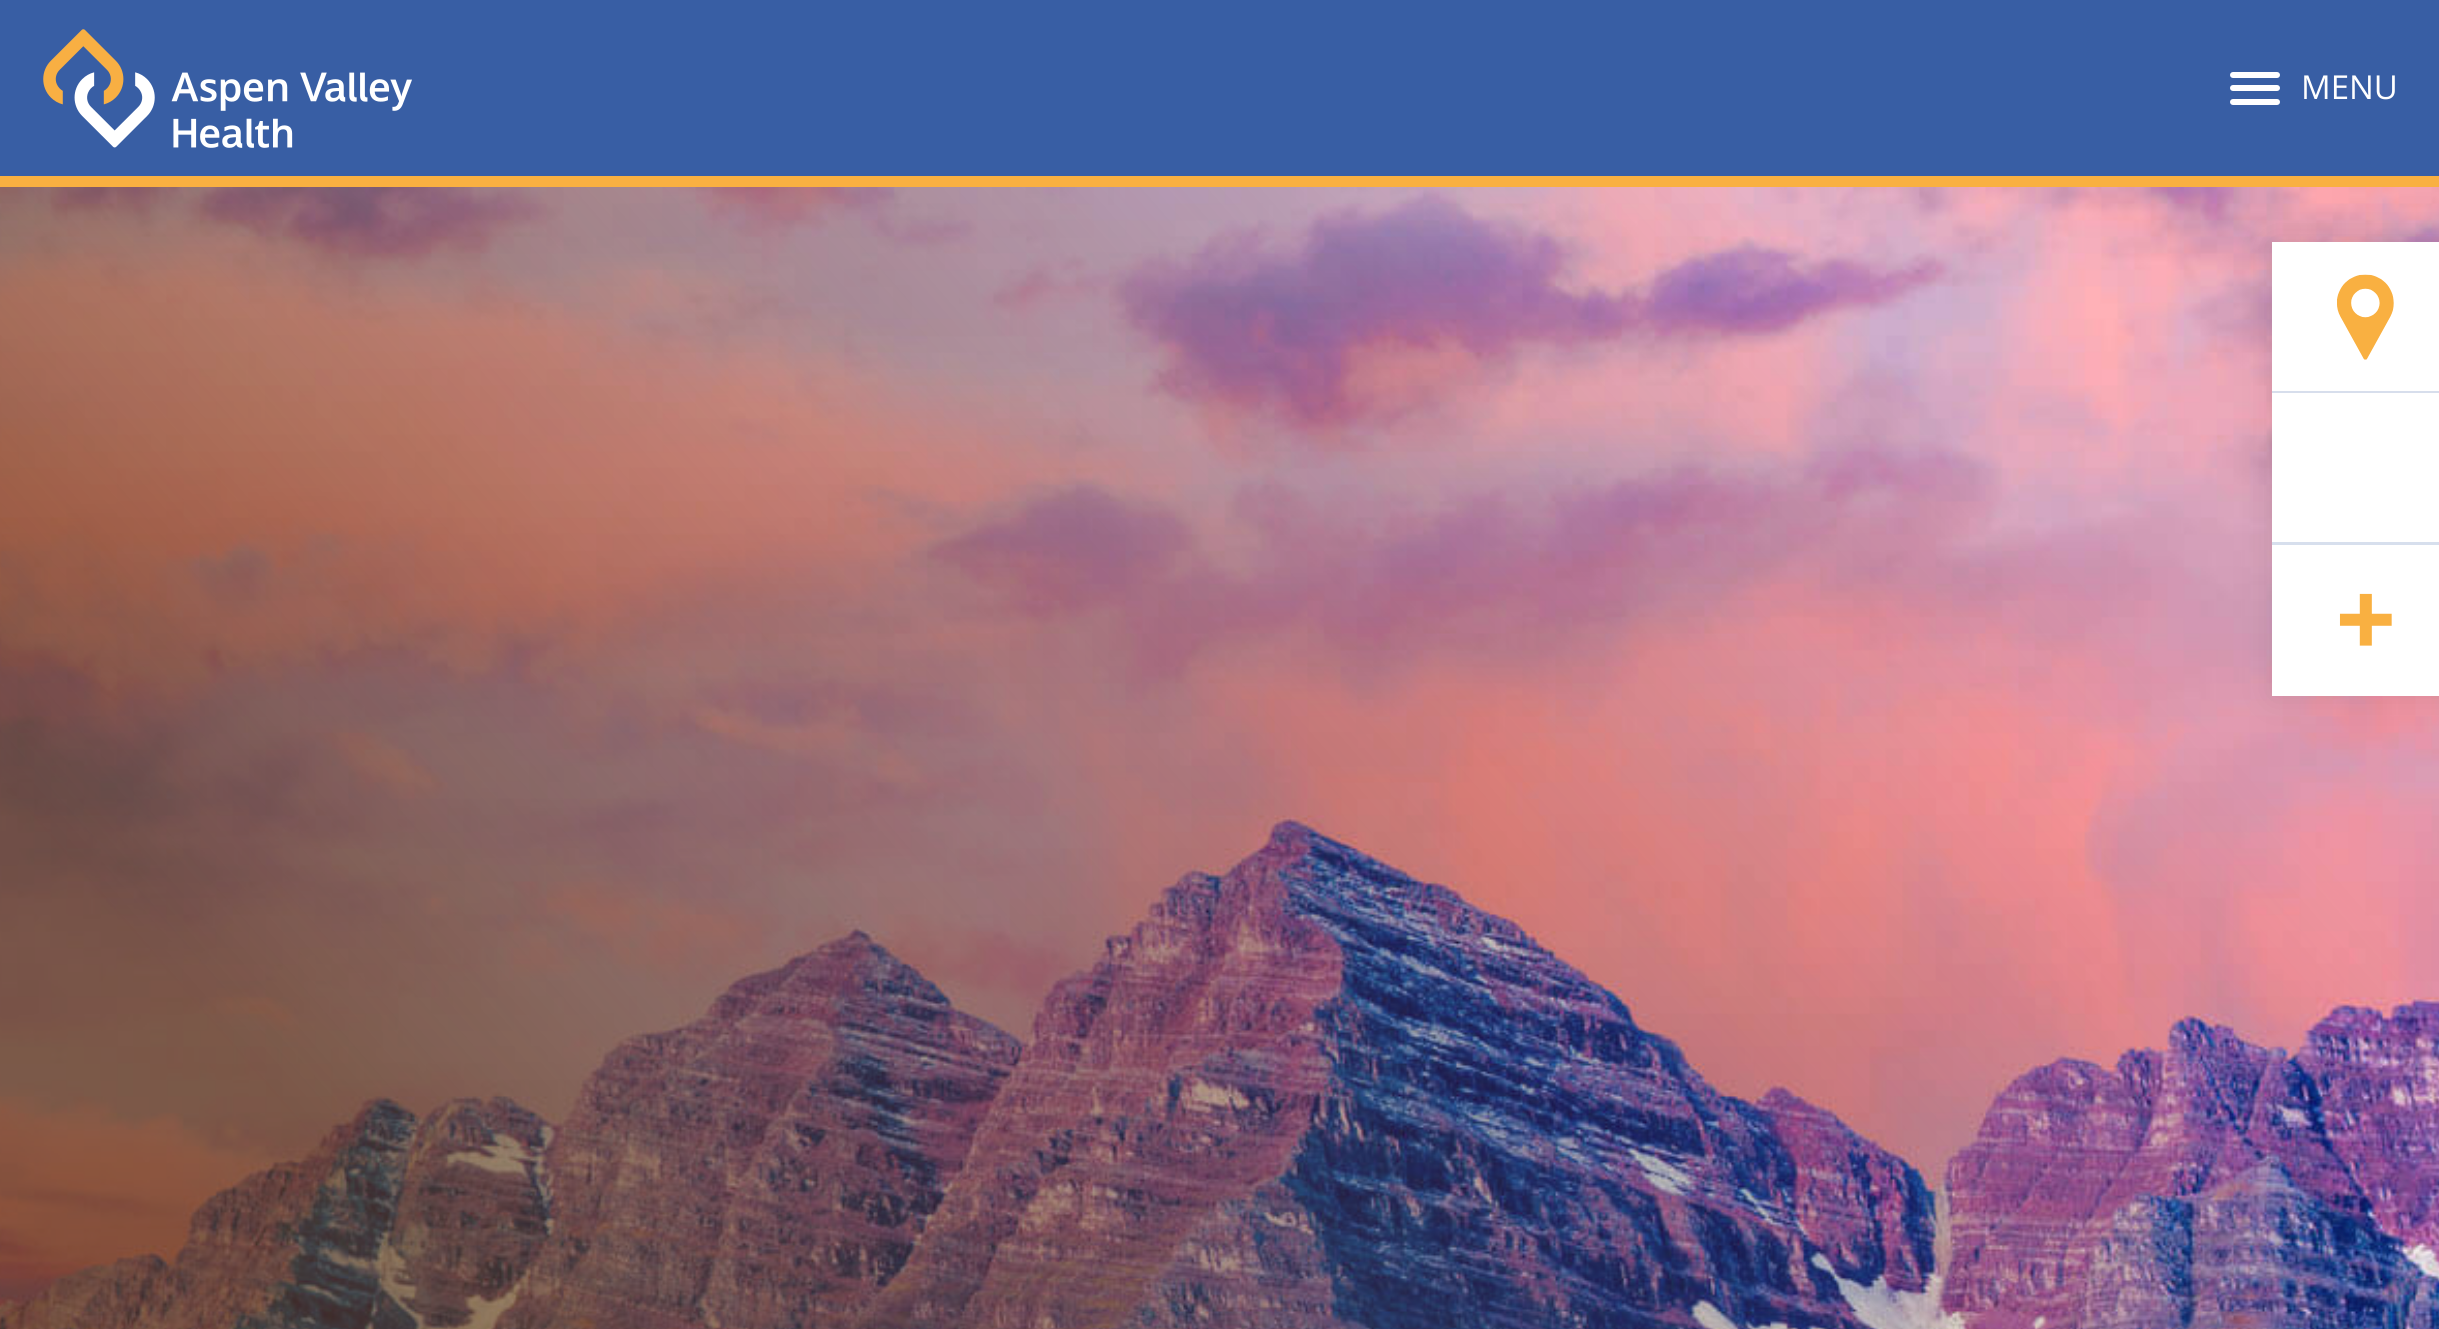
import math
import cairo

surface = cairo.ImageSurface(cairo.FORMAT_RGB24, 2439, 1329)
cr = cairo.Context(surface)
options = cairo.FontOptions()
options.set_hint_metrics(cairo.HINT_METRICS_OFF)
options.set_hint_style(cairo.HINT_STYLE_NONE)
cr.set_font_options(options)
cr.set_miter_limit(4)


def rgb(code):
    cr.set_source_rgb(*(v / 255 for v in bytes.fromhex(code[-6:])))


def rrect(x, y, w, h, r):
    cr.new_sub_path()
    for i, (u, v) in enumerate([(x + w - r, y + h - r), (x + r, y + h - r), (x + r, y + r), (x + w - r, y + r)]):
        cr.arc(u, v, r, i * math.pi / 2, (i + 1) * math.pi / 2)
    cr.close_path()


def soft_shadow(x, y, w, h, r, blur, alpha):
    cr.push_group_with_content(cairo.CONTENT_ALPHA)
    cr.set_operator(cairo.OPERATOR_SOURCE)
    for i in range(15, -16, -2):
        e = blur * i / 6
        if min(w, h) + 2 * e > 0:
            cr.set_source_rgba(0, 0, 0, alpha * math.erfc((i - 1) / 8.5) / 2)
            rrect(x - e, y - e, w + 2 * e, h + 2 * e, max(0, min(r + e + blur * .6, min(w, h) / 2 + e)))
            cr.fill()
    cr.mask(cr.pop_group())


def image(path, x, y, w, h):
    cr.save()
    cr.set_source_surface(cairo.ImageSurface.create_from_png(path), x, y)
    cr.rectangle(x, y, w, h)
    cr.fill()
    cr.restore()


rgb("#ffffff")
cr.paint()
rgb("#385ea4")
cr.rectangle(0, 0, 2439, 176)
cr.fill()
rgb("#f9b041")
cr.rectangle(0, 176, 2439, 11)
cr.fill()
image("img/1.png", 43, 29, 369, 119)
rgb("#ffffff")
rrect(2230, 72, 50, 6, 3)
cr.fill()
rrect(2230, 85, 50, 6, 3)
cr.fill()
rrect(2230, 99, 50, 6, 3)
cr.fill()
image("img/4.png", 0, 187, 2439, 1142)
rgb("#000000")
soft_shadow(2272, 242, 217, 454, 0, 16.5, 0.1)
rgb("#ffffff")
cr.rectangle(2272, 242, 167, 300)
cr.fill()
cr.set_source_rgba(0.22, 0.369, 0.643, 0.2)
cr.rectangle(2272, 391, 167, 2)
cr.fill()
image("img/2.png", 2337, 274, 57, 86)
rgb("#d7dfed")
cr.rectangle(2272, 542, 167, 3)
cr.fill()
rgb("#ffffff")
cr.rectangle(2272, 545, 167, 151)
cr.fill()
image("img/3.png", 2339, 593, 53, 53)
cr.select_font_face("Open Sans")
cr.set_font_size(33)
cr.move_to(2301, 99)
cr.show_text("MENU")
surface.write_to_png("page.png")
